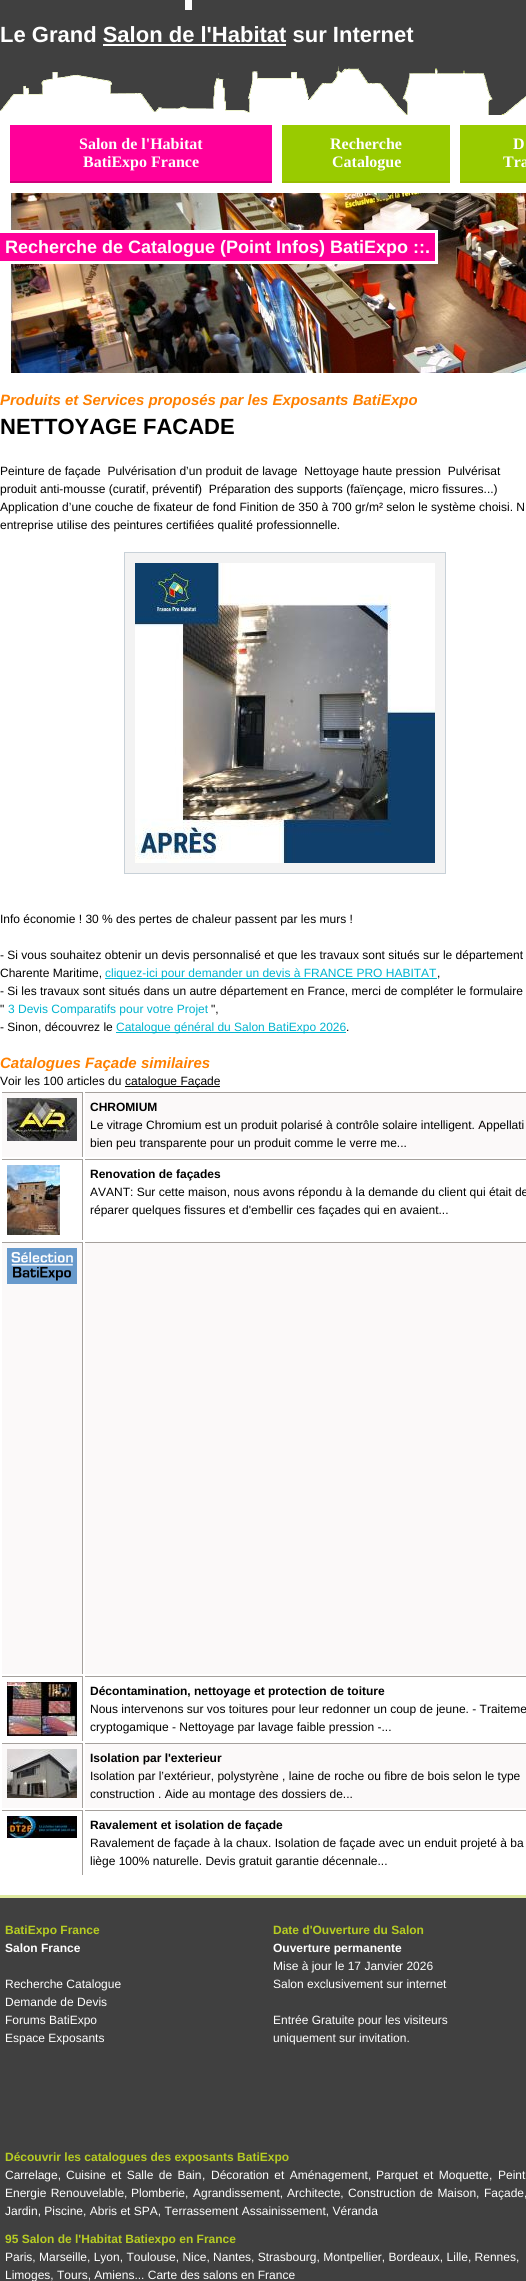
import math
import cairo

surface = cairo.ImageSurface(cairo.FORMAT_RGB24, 526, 2281)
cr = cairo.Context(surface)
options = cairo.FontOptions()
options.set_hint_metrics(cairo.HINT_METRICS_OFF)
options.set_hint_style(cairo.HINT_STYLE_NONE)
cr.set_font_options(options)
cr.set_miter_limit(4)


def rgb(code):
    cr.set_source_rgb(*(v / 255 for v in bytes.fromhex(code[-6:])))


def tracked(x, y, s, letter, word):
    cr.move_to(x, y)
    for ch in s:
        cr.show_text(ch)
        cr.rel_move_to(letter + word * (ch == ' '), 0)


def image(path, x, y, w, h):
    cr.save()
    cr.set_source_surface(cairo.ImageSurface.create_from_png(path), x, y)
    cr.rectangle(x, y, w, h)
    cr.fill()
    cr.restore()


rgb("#404040")
cr.paint()
rgb("#fcfcfc")
cr.rectangle(185, 0, 7, 10)
cr.fill()
rgb("#ffffff")
cr.rectangle(103, 44, 183, 2)
cr.fill()
image("img/1.png", 0, 66, 526, 49)
for x, y, w, h, color in [
    (0, 115, 526, 1780, "#ffffff"),
    (10, 125, 262, 56, "#ff0099"),
    (10, 181, 262, 2, "#d0007a"),
    (282, 125, 168, 56, "#99cb00"),
    (282, 181, 168, 2, "#96bc00"),
    (460, 125, 66, 56, "#99cb00"),
    (460, 181, 66, 2, "#96bc00"),
]:
    rgb(color)
    cr.rectangle(x, y, w, h)
    cr.fill()
image("img/2.png", 10, 193, 516, 180)
cr.rectangle(-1.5, 231.5, 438, 31)
rgb("#ffffff")
cr.set_line_width(3)
cr.stroke()
rgb("#ff0099")
cr.rectangle(0, 233, 435, 28)
cr.fill()
rgb("#f3f3f3")
cr.rectangle(124.5, 552.5, 321, 321)
cr.fill_preserve()
rgb("#c8d1d8")
cr.set_line_width(1)
cr.stroke()
image("img/3.png", 135, 563, 300, 300)
for x, y, w, h, color in [
    (105, 978, 332, 1, "#00b3cf"),
    (116, 1032, 230, 1, "#00b3cf"),
    (125, 1086, 95, 1, "#000000"),
    (2, 1093, 80, 64, "#fbf9f9"),
    (2, 1092, 81, 1, "#a5a09c"),
    (82, 1092, 1, 65, "#a5a09c"),
]:
    rgb(color)
    cr.rectangle(x, y, w, h)
    cr.fill()
image("img/4.png", 7, 1098, 70, 43)
for x, y, w, h, color in [
    (85, 1093, 441, 64, "#fbf9f9"),
    (85, 1092, 441, 1, "#a5a09c"),
    (2, 1159, 81, 1, "#a5a09c"),
    (82, 1159, 1, 81, "#a5a09c"),
]:
    rgb(color)
    cr.rectangle(x, y, w, h)
    cr.fill()
image("img/5.png", 7, 1165, 53, 70)
for x, y, w, h, color in [
    (85, 1159, 441, 1, "#a5a09c"),
    (2, 1243, 80, 431, "#fbf9f9"),
    (2, 1242, 81, 1, "#a5a09c"),
    (82, 1242, 1, 432, "#a5a09c"),
]:
    rgb(color)
    cr.rectangle(x, y, w, h)
    cr.fill()
image("img/6.png", 7, 1248, 70, 36)
for x, y, w, h, color in [
    (85, 1243, 441, 431, "#fbf9f9"),
    (85, 1242, 441, 1, "#a5a09c"),
    (2, 1676, 81, 1, "#a5a09c"),
    (82, 1676, 1, 65, "#a5a09c"),
]:
    rgb(color)
    cr.rectangle(x, y, w, h)
    cr.fill()
image("img/7.png", 7, 1682, 70, 54)
for x, y, w, h, color in [
    (85, 1676, 441, 1, "#a5a09c"),
    (2, 1744, 80, 64, "#fbf9f9"),
    (2, 1743, 81, 1, "#a5a09c"),
    (82, 1743, 1, 65, "#a5a09c"),
]:
    rgb(color)
    cr.rectangle(x, y, w, h)
    cr.fill()
image("img/8.png", 7, 1749, 70, 49)
for x, y, w, h, color in [
    (85, 1744, 441, 64, "#fbf9f9"),
    (85, 1743, 441, 1, "#a5a09c"),
    (2, 1810, 81, 1, "#a5a09c"),
    (82, 1810, 1, 65, "#a5a09c"),
]:
    rgb(color)
    cr.rectangle(x, y, w, h)
    cr.fill()
image("img/9.png", 7, 1816, 70, 22)
cr.rectangle(85, 1810, 441, 1)
cr.fill()
rgb("#dee89e")
cr.rectangle(0, 1895, 526, 3)
cr.fill()
cr.select_font_face("Liberation Sans", cairo.FONT_SLANT_NORMAL, cairo.FONT_WEIGHT_BOLD)
cr.set_font_size(22)
rgb("#ffffff")
cr.move_to(0, 42)
cr.show_text("Le Grand Salon de l'Habitat sur Internet")
cr.select_font_face("Liberation Serif", cairo.FONT_SLANT_NORMAL, cairo.FONT_WEIGHT_BOLD)
cr.set_font_size(16)
for x, y, s in [
    (79, 149, "Salon de l'Habitat"),
    (83, 167, "BatiExpo France"),
    (330, 149, "Recherche"),
    (332, 167, "Catalogue"),
    (513, 149, "D"),
    (503, 167, "Tra"),
]:
    cr.move_to(x, y)
    cr.show_text(s)
cr.select_font_face("Liberation Sans", cairo.FONT_SLANT_NORMAL, cairo.FONT_WEIGHT_BOLD)
cr.set_font_size(18)
cr.move_to(5, 253)
cr.show_text("Recherche de Catalogue (Point Infos) BatiExpo ::.")
cr.select_font_face("Liberation Sans", cairo.FONT_SLANT_ITALIC, cairo.FONT_WEIGHT_BOLD)
cr.set_font_size(15)
rgb("#ff8000")
cr.move_to(0, 405)
cr.show_text("Produits et Services proposés par les Exposants BatiExpo")
cr.select_font_face("Liberation Sans", cairo.FONT_SLANT_NORMAL, cairo.FONT_WEIGHT_BOLD)
cr.set_font_size(22)
rgb("#000000")
cr.move_to(0, 434)
cr.show_text("NETTOYAGE FACADE")
cr.select_font_face("Liberation Sans")
cr.set_font_size(12)
for x, y, s in [
    (0, 475, "Peinture de façade  Pulvérisation d’un produit de lavage  Nettoyage haute pression  Pulvérisat"),
    (0, 493, "produit anti-mousse (curatif, préventif)  Préparation des supports (faïençage, micro fissures...) "),
    (0, 511, "Application d’une couche de fixateur de fond Finition de 350 à 700 gr/m² selon le système choisi. N"),
    (0, 529, "entreprise utilise des peintures certifiées qualité professionnelle."),
    (0, 923, "Info économie ! 30 % des pertes de chaleur passent par les murs !"),
    (0, 959, "- Si vous souhaitez obtenir un devis personnalisé et que les travaux sont situés sur le département"),
    (0, 977, "Charente Maritime,"),
]:
    cr.move_to(x, y)
    cr.show_text(s)
rgb("#00b3cf")
cr.move_to(105, 977)
cr.show_text("cliquez-ici pour demander un devis à FRANCE PRO HABITAT")
rgb("#000000")
for x, y, s in [
    (437, 977, ","),
    (0, 995, "- Si les travaux sont situés dans un autre département en France, merci de compléter le formulaire"),
    (0, 1013, "\""),
]:
    cr.move_to(x, y)
    cr.show_text(s)
rgb("#00b3cf")
cr.move_to(8, 1013)
cr.show_text("3 Devis Comparatifs pour votre Projet")
rgb("#000000")
cr.move_to(211, 1013)
cr.show_text("\",")
cr.move_to(0, 1031)
cr.show_text("- Sinon, découvrez le")
rgb("#00b3cf")
cr.move_to(116, 1031)
cr.show_text("Catalogue général du Salon BatiExpo 2026")
rgb("#000000")
cr.move_to(346, 1031)
cr.show_text(".")
cr.select_font_face("Liberation Sans", cairo.FONT_SLANT_ITALIC, cairo.FONT_WEIGHT_BOLD)
cr.set_font_size(15)
rgb("#ff8000")
cr.move_to(0, 1068)
cr.show_text("Catalogues Façade similaires")
cr.select_font_face("Liberation Sans")
cr.set_font_size(12)
rgb("#000000")
cr.move_to(0, 1085)
cr.show_text("Voir les 100 articles du")
cr.move_to(125, 1085)
cr.show_text("catalogue Façade")
cr.select_font_face("Liberation Sans", cairo.FONT_SLANT_NORMAL, cairo.FONT_WEIGHT_BOLD)
cr.move_to(90, 1111)
cr.show_text("CHROMIUM")
cr.select_font_face("Liberation Sans")
cr.move_to(90, 1129)
cr.show_text("Le vitrage Chromium est un produit polarisé à contrôle solaire intelligent. Appellati")
cr.move_to(90, 1147)
cr.show_text("bien peu transparente pour un produit comme le verre me...")
cr.select_font_face("Liberation Sans", cairo.FONT_SLANT_NORMAL, cairo.FONT_WEIGHT_BOLD)
cr.move_to(90, 1178)
cr.show_text("Renovation de façades")
cr.select_font_face("Liberation Sans")
cr.move_to(90, 1196)
cr.show_text("AVANT: Sur cette maison, nous avons répondu à la demande du client qui était de")
cr.move_to(90, 1214)
cr.show_text("réparer quelques fissures et d'embellir ces façades qui en avaient...")
cr.select_font_face("Liberation Sans", cairo.FONT_SLANT_NORMAL, cairo.FONT_WEIGHT_BOLD)
cr.move_to(90, 1695)
cr.show_text("Décontamination, nettoyage et protection de toiture")
cr.select_font_face("Liberation Sans")
cr.move_to(90, 1713)
cr.show_text("Nous intervenons sur vos toitures pour leur redonner un coup de jeune. - Traiteme")
cr.move_to(90, 1731)
cr.show_text("cryptogamique - Nettoyage par lavage faible pression -...")
cr.select_font_face("Liberation Sans", cairo.FONT_SLANT_NORMAL, cairo.FONT_WEIGHT_BOLD)
cr.move_to(90, 1762)
cr.show_text("Isolation par l'exterieur")
cr.select_font_face("Liberation Sans")
cr.move_to(90, 1780)
cr.show_text("Isolation par l’extérieur, polystyrène , laine de roche ou fibre de bois selon le type")
cr.move_to(90, 1798)
cr.show_text("construction . Aide au montage des dossiers de...")
cr.select_font_face("Liberation Sans", cairo.FONT_SLANT_NORMAL, cairo.FONT_WEIGHT_BOLD)
cr.move_to(90, 1829)
cr.show_text("Ravalement et isolation de façade")
cr.select_font_face("Liberation Sans")
cr.move_to(90, 1847)
cr.show_text("Ravalement de façade à la chaux. Isolation de façade avec un enduit projeté à ba")
cr.move_to(90, 1865)
cr.show_text("liège 100% naturelle. Devis gratuit garantie décennale...")
cr.select_font_face("Liberation Sans", cairo.FONT_SLANT_NORMAL, cairo.FONT_WEIGHT_BOLD)
rgb("#b7cd22")
cr.move_to(5, 1934)
cr.show_text("BatiExpo France")
rgb("#ffffff")
cr.move_to(5, 1952)
cr.show_text("Salon France")
cr.select_font_face("Liberation Sans")
for x, y, s in [
    (5, 1988, "Recherche Catalogue"),
    (5, 2006, "Demande de Devis"),
    (5, 2024, "Forums BatiExpo"),
    (5, 2042, "Espace Exposants"),
]:
    cr.move_to(x, y)
    cr.show_text(s)
cr.select_font_face("Liberation Sans", cairo.FONT_SLANT_NORMAL, cairo.FONT_WEIGHT_BOLD)
rgb("#b7cd22")
cr.move_to(273, 1934)
cr.show_text("Date d'Ouverture du Salon")
rgb("#ffffff")
cr.move_to(273, 1952)
cr.show_text("Ouverture permanente")
cr.select_font_face("Liberation Sans")
for x, y, s in [
    (273, 1970, "Mise à jour le 17 Janvier 2026"),
    (273, 1988, "Salon exclusivement sur internet"),
    (273, 2024, "Entrée Gratuite pour les visiteurs"),
    (273, 2042, "uniquement sur invitation."),
]:
    cr.move_to(x, y)
    cr.show_text(s)
cr.select_font_face("Liberation Sans", cairo.FONT_SLANT_NORMAL, cairo.FONT_WEIGHT_BOLD)
rgb("#b7cd22")
cr.move_to(5, 2161)
cr.show_text("Découvrir les catalogues des exposants BatiExpo")
cr.select_font_face("Liberation Sans")
rgb("#ffffff")
cr.move_to(5, 2179)
cr.show_text("Carrelage,")
tracked(66, 2179, "Cuisine et Salle de Bain", 0, 2)
cr.move_to(202, 2179)
cr.show_text(",")
tracked(211, 2179, "Décoration et Aménagement", 0, 2)
cr.move_to(368, 2179)
cr.show_text(",")
tracked(376, 2179, "Parquet et Moquette", 0, 2)
cr.move_to(489, 2179)
cr.show_text(",")
tracked(498, 2179, "Peint", 0, 2)
tracked(5, 2197, "Energie Renouvelable", 0, 1)
for x, y, s in [
    (124, 2197, ","),
    (131, 2197, "Plomberie,"),
    (193, 2197, "Agrandissement,"),
    (287, 2197, "Architecte,"),
]:
    cr.move_to(x, y)
    cr.show_text(s)
tracked(348, 2197, "Construction de Maison", 0, 1)
for x, y, s in [
    (476, 2197, ","),
    (484, 2197, "Façade,"),
    (5, 2215, "Jardin, Piscine, Abris et SPA, Terrassement Assainissement, Véranda"),
]:
    cr.move_to(x, y)
    cr.show_text(s)
cr.select_font_face("Liberation Sans", cairo.FONT_SLANT_NORMAL, cairo.FONT_WEIGHT_BOLD)
rgb("#b7cd22")
cr.move_to(5, 2243)
cr.show_text("95 Salon de l'Habitat Batiexpo en France")
cr.select_font_face("Liberation Sans")
rgb("#ffffff")
cr.move_to(5, 2261)
cr.show_text("Paris, Marseille, Lyon, Toulouse, Nice, Nantes, Strasbourg, Montpellier, Bordeaux, Lille, Rennes,")
cr.move_to(5, 2279)
cr.show_text("Limoges, Tours, Amiens... Carte des salons en France")
surface.write_to_png("page.png")
